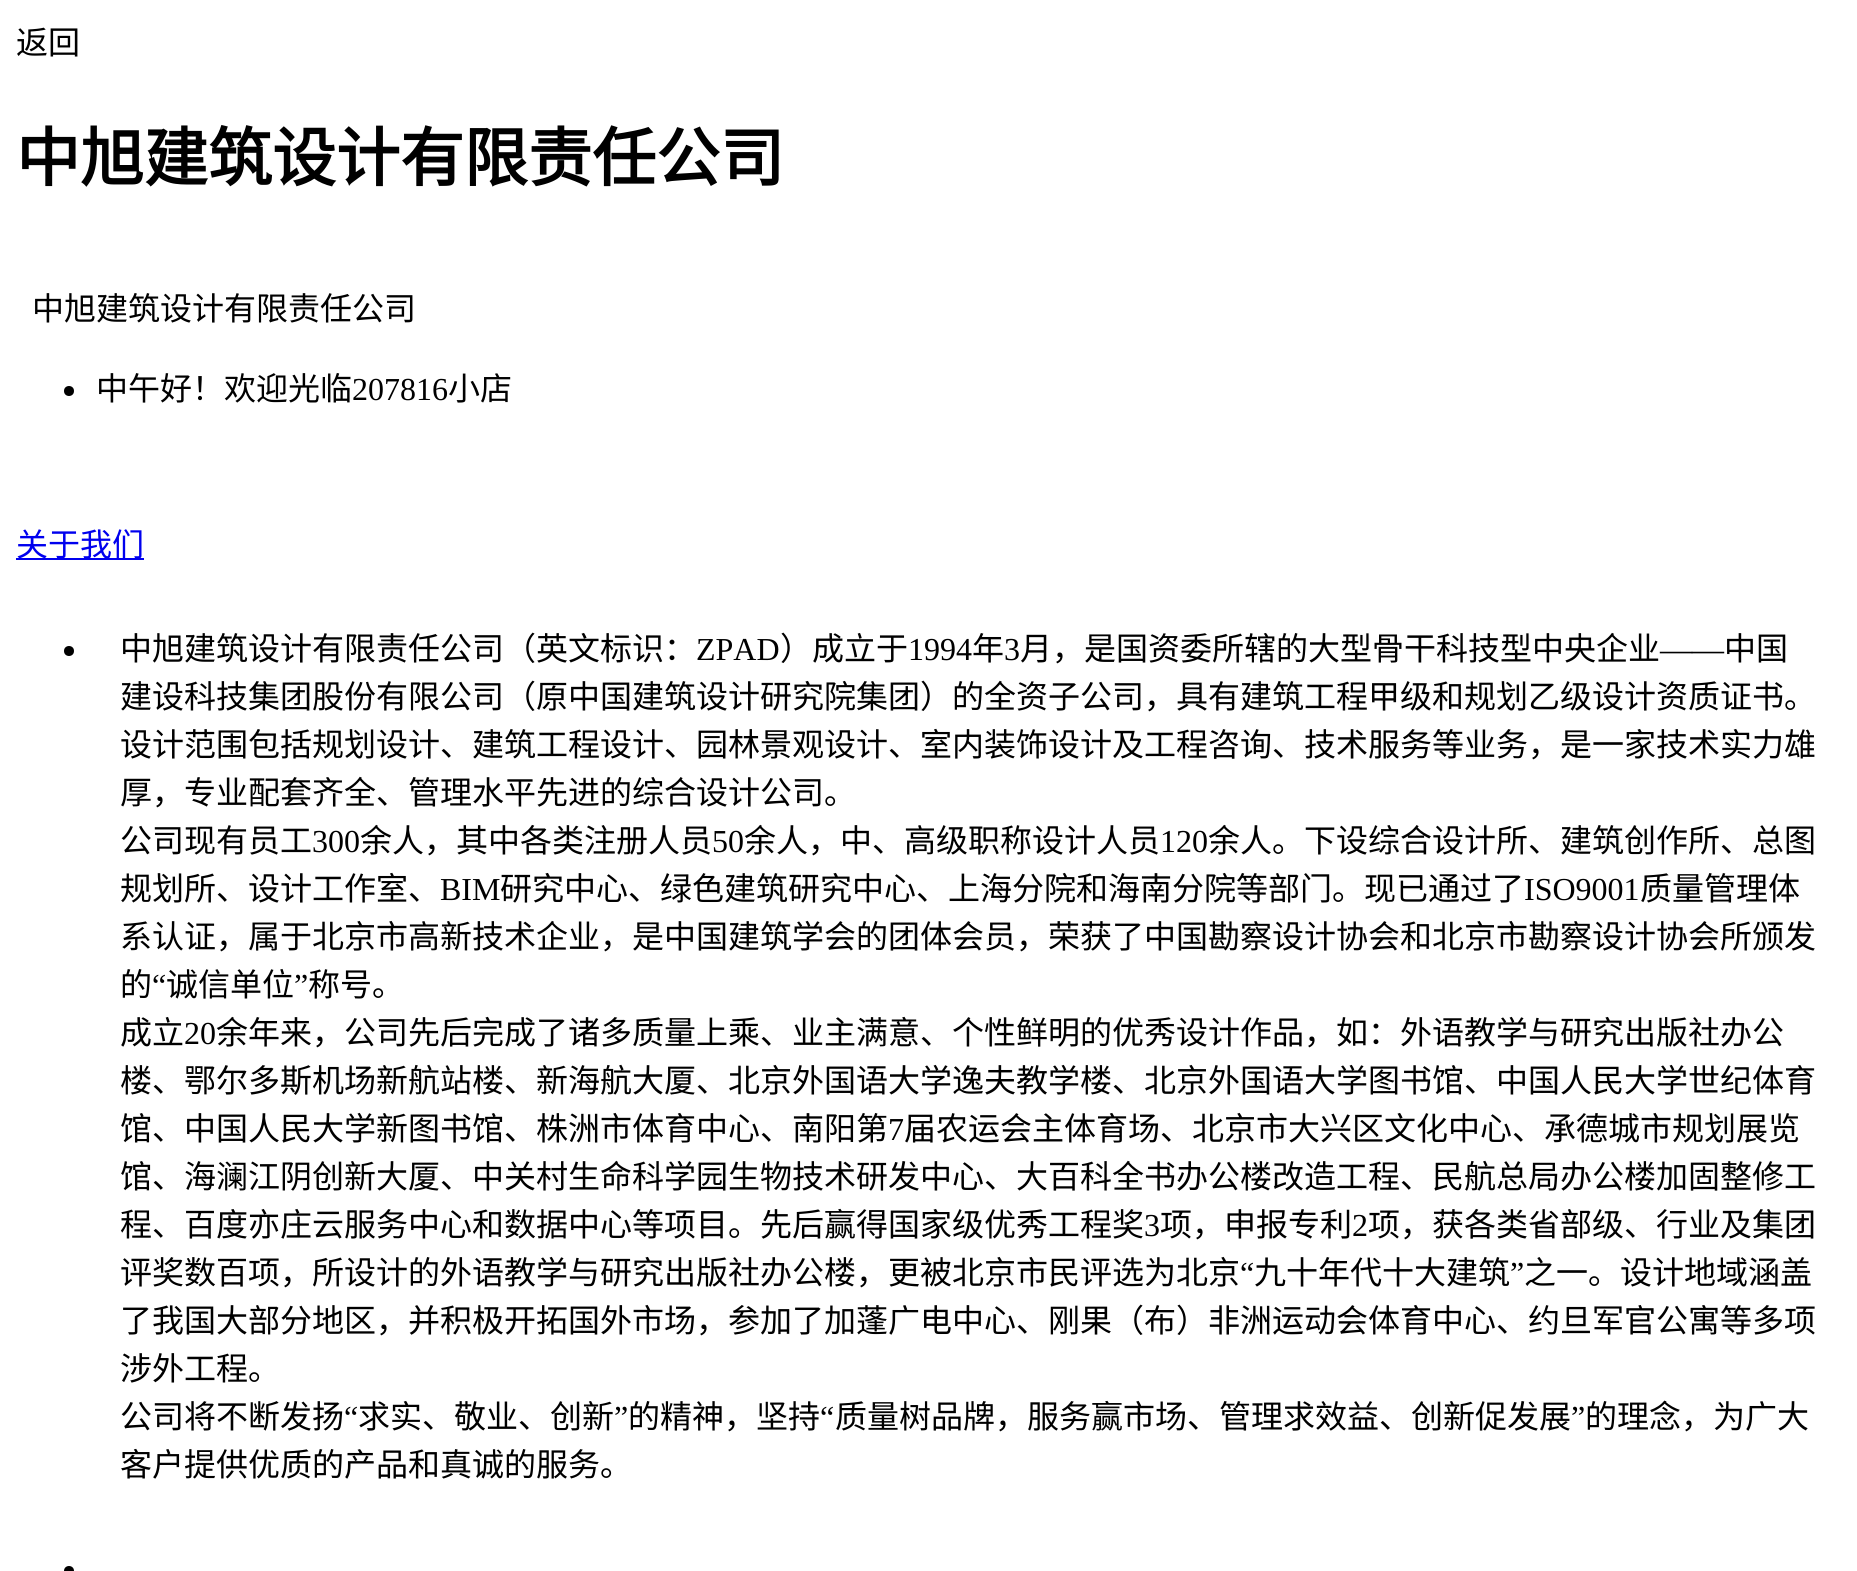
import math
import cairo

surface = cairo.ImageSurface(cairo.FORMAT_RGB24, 1857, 1571)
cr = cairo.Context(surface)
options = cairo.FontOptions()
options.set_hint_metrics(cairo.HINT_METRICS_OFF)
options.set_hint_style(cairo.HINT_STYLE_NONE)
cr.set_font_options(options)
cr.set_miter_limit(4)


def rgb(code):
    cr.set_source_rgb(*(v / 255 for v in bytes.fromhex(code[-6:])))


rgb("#ffffff")
cr.paint()
rgb("#000000")
cr.arc(69, 391, 5, 0, 2 * math.pi)
cr.fill()
rgb("#0000ee")
cr.rectangle(16, 558, 128, 2)
cr.fill()
rgb("#000000")
cr.arc(69, 651, 5, 0, 2 * math.pi)
cr.fill()
cr.arc(69, 1571, 5, 0, 2 * math.pi)
cr.fill()
cr.select_font_face("Noto Sans CJK SC")
cr.set_font_size(32)
cr.move_to(16, 54)
cr.show_text("返回")
cr.select_font_face("Noto Sans CJK SC", cairo.FONT_SLANT_NORMAL, cairo.FONT_WEIGHT_BOLD)
cr.set_font_size(64)
cr.move_to(16, 181)
cr.show_text("中旭建筑设计有限责任公司")
cr.select_font_face("Noto Sans CJK SC")
cr.set_font_size(32)
cr.move_to(32, 320)
cr.show_text("中旭建筑设计有限责任公司")
cr.move_to(96, 400)
cr.show_text("中午好！欢迎光临")
cr.select_font_face("Liberation Serif")
cr.move_to(352, 400)
cr.show_text("207816")
cr.select_font_face("Noto Sans CJK SC")
cr.move_to(448, 400)
cr.show_text("小店")
rgb("#0000ee")
cr.move_to(16, 556)
cr.show_text("关于我们")
rgb("#000000")
cr.move_to(120, 660)
cr.show_text("中旭建筑设计有限责任公司（英文标识：")
cr.select_font_face("Liberation Serif")
cr.move_to(696, 660)
cr.show_text("ZPAD")
cr.select_font_face("Noto Sans CJK SC")
cr.move_to(780, 660)
cr.show_text("）成立于")
cr.select_font_face("Liberation Serif")
cr.move_to(908, 660)
cr.show_text("1994")
cr.select_font_face("Noto Sans CJK SC")
cr.move_to(972, 660)
cr.show_text("年")
cr.select_font_face("Liberation Serif")
cr.move_to(1004, 660)
cr.show_text("3")
cr.select_font_face("Noto Sans CJK SC")
cr.move_to(1020, 660)
cr.show_text("月，是国资委所辖的大型骨干科技型中央企业")
cr.select_font_face("Liberation Serif")
cr.move_to(1660, 660)
cr.show_text("——")
cr.select_font_face("Noto Sans CJK SC")
for x, y, s in [
    (1724, 660, "中国"),
    (120, 708, "建设科技集团股份有限公司（原中国建筑设计研究院集团）的全资子公司，具有建筑工程甲级和规划乙级设计资质证书。"),
    (120, 756, "设计范围包括规划设计、建筑工程设计、园林景观设计、室内装饰设计及工程咨询、技术服务等业务，是一家技术实力雄"),
    (120, 804, "厚，专业配套齐全、管理水平先进的综合设计公司。"),
    (120, 852, "公司现有员工"),
]:
    cr.move_to(x, y)
    cr.show_text(s)
cr.select_font_face("Liberation Serif")
cr.move_to(312, 852)
cr.show_text("300")
cr.select_font_face("Noto Sans CJK SC")
cr.move_to(360, 852)
cr.show_text("余人，其中各类注册人员")
cr.select_font_face("Liberation Serif")
cr.move_to(712, 852)
cr.show_text("50")
cr.select_font_face("Noto Sans CJK SC")
cr.move_to(744, 852)
cr.show_text("余人，中、高级职称设计人员")
cr.select_font_face("Liberation Serif")
cr.move_to(1160, 852)
cr.show_text("120")
cr.select_font_face("Noto Sans CJK SC")
cr.move_to(1208, 852)
cr.show_text("余人。下设综合设计所、建筑创作所、总图")
cr.move_to(120, 900)
cr.show_text("规划所、设计工作室、")
cr.select_font_face("Liberation Serif")
cr.move_to(440, 900)
cr.show_text("BIM")
cr.select_font_face("Noto Sans CJK SC")
cr.move_to(500, 900)
cr.show_text("研究中心、绿色建筑研究中心、上海分院和海南分院等部门。现已通过了")
cr.select_font_face("Liberation Serif")
cr.move_to(1524, 900)
cr.show_text("ISO9001")
cr.select_font_face("Noto Sans CJK SC")
for x, y, s in [
    (1640, 900, "质量管理体"),
    (120, 948, "系认证，属于北京市高新技术企业，是中国建筑学会的团体会员，荣获了中国勘察设计协会和北京市勘察设计协会所颁发"),
    (120, 996, "的"),
]:
    cr.move_to(x, y)
    cr.show_text(s)
cr.select_font_face("Liberation Serif")
cr.move_to(152, 996)
cr.show_text("“")
cr.select_font_face("Noto Sans CJK SC")
cr.move_to(166, 996)
cr.show_text("诚信单位")
cr.select_font_face("Liberation Serif")
cr.move_to(294, 996)
cr.show_text("”")
cr.select_font_face("Noto Sans CJK SC")
cr.move_to(308, 996)
cr.show_text("称号。")
cr.move_to(120, 1044)
cr.show_text("成立")
cr.select_font_face("Liberation Serif")
cr.move_to(184, 1044)
cr.show_text("20")
cr.select_font_face("Noto Sans CJK SC")
for x, y, s in [
    (216, 1044, "余年来，公司先后完成了诸多质量上乘、业主满意、个性鲜明的优秀设计作品，如：外语教学与研究出版社办公"),
    (120, 1092, "楼、鄂尔多斯机场新航站楼、新海航大厦、北京外国语大学逸夫教学楼、北京外国语大学图书馆、中国人民大学世纪体育"),
    (120, 1140, "馆、中国人民大学新图书馆、株洲市体育中心、南阳第"),
]:
    cr.move_to(x, y)
    cr.show_text(s)
cr.select_font_face("Liberation Serif")
cr.move_to(888, 1140)
cr.show_text("7")
cr.select_font_face("Noto Sans CJK SC")
for x, y, s in [
    (904, 1140, "届农运会主体育场、北京市大兴区文化中心、承德城市规划展览"),
    (120, 1188, "馆、海澜江阴创新大厦、中关村生命科学园生物技术研发中心、大百科全书办公楼改造工程、民航总局办公楼加固整修工"),
    (120, 1236, "程、百度亦庄云服务中心和数据中心等项目。先后赢得国家级优秀工程奖"),
]:
    cr.move_to(x, y)
    cr.show_text(s)
cr.select_font_face("Liberation Serif")
cr.move_to(1144, 1236)
cr.show_text("3")
cr.select_font_face("Noto Sans CJK SC")
cr.move_to(1160, 1236)
cr.show_text("项，申报专利")
cr.select_font_face("Liberation Serif")
cr.move_to(1352, 1236)
cr.show_text("2")
cr.select_font_face("Noto Sans CJK SC")
cr.move_to(1368, 1236)
cr.show_text("项，获各类省部级、行业及集团")
cr.move_to(120, 1284)
cr.show_text("评奖数百项，所设计的外语教学与研究出版社办公楼，更被北京市民评选为北京")
cr.select_font_face("Liberation Serif")
cr.move_to(1240, 1284)
cr.show_text("“")
cr.select_font_face("Noto Sans CJK SC")
cr.move_to(1254, 1284)
cr.show_text("九十年代十大建筑")
cr.select_font_face("Liberation Serif")
cr.move_to(1510, 1284)
cr.show_text("”")
cr.select_font_face("Noto Sans CJK SC")
for x, y, s in [
    (1524, 1284, "之一。设计地域涵盖"),
    (120, 1332, "了我国大部分地区，并积极开拓国外市场，参加了加蓬广电中心、刚果（布）非洲运动会体育中心、约旦军官公寓等多项"),
    (120, 1380, "涉外工程。"),
    (120, 1428, "公司将不断发扬"),
]:
    cr.move_to(x, y)
    cr.show_text(s)
cr.select_font_face("Liberation Serif")
cr.move_to(344, 1428)
cr.show_text("“")
cr.select_font_face("Noto Sans CJK SC")
cr.move_to(358, 1428)
cr.show_text("求实、敬业、创新")
cr.select_font_face("Liberation Serif")
cr.move_to(614, 1428)
cr.show_text("”")
cr.select_font_face("Noto Sans CJK SC")
cr.move_to(628, 1428)
cr.show_text("的精神，坚持")
cr.select_font_face("Liberation Serif")
cr.move_to(820, 1428)
cr.show_text("“")
cr.select_font_face("Noto Sans CJK SC")
cr.move_to(835, 1428)
cr.show_text("质量树品牌，服务赢市场、管理求效益、创新促发展")
cr.select_font_face("Liberation Serif")
cr.move_to(1571, 1428)
cr.show_text("”")
cr.select_font_face("Noto Sans CJK SC")
cr.move_to(1585, 1428)
cr.show_text("的理念，为广大")
cr.move_to(120, 1476)
cr.show_text("客户提供优质的产品和真诚的服务。")
surface.write_to_png("page.png")
